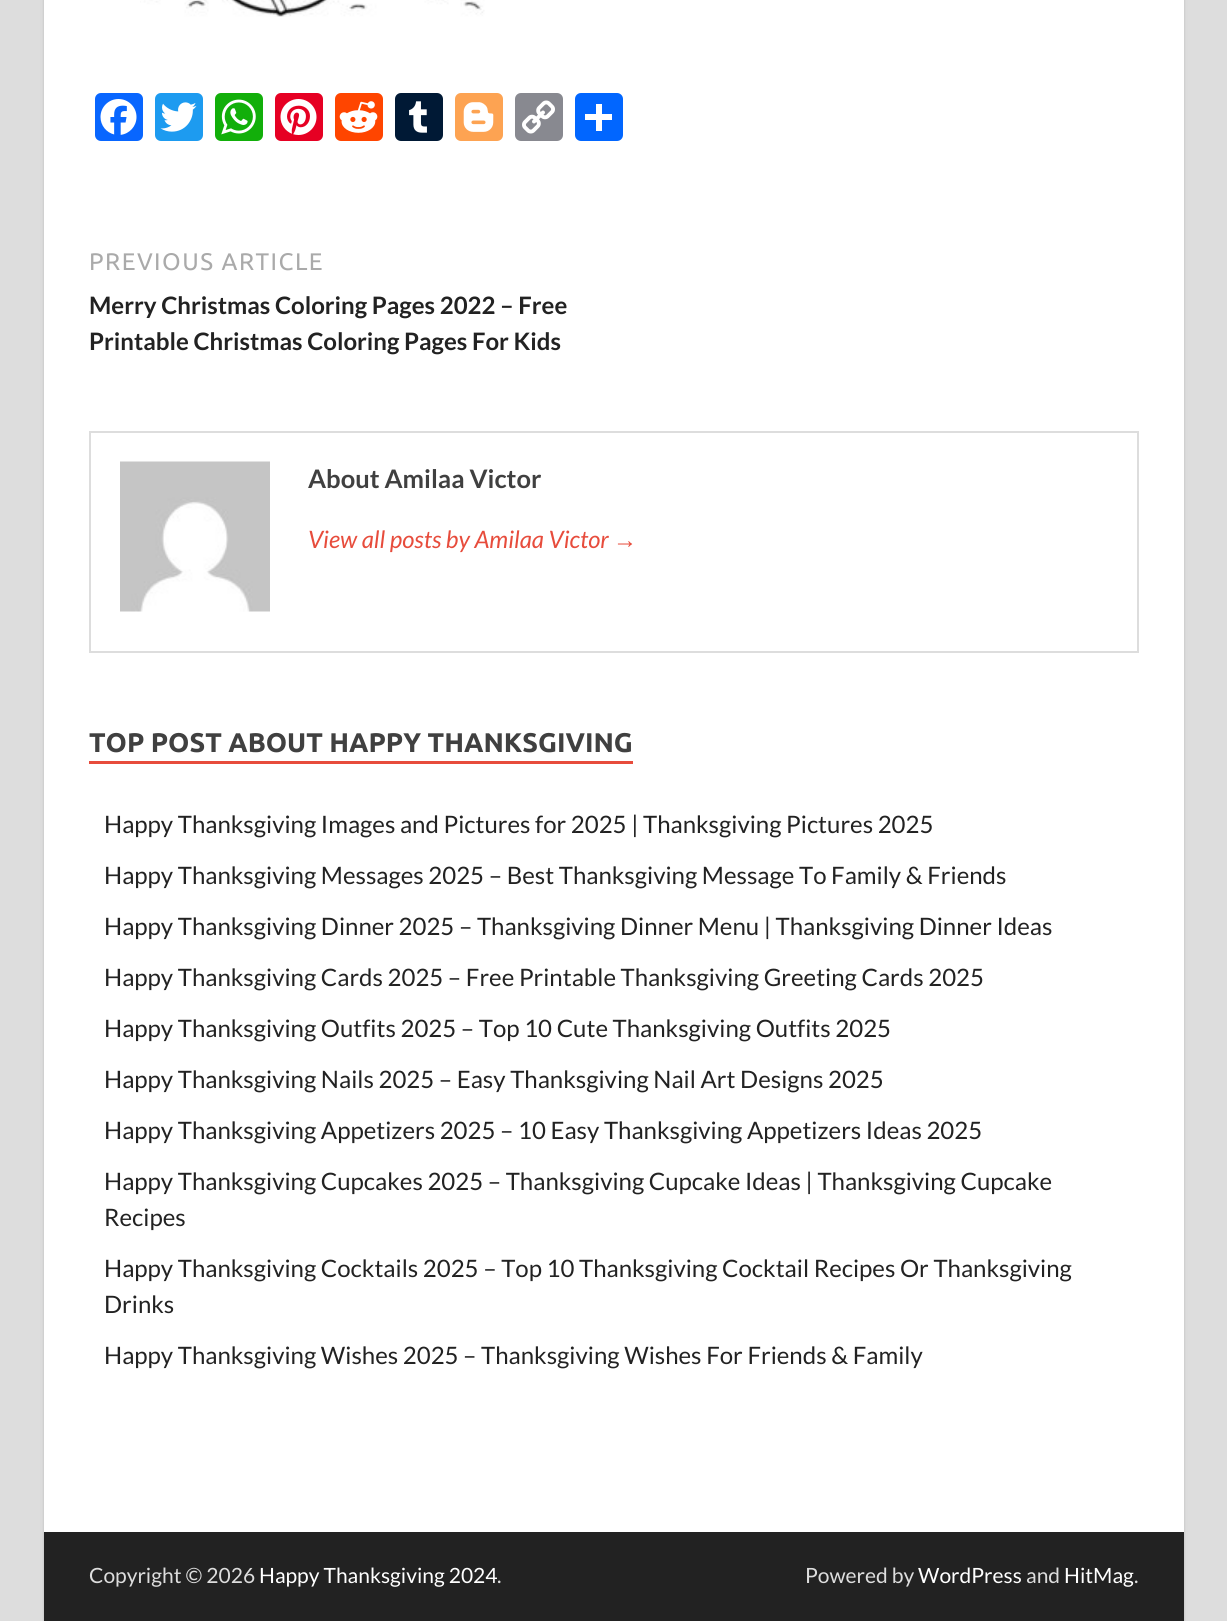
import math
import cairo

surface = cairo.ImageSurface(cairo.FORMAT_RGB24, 1227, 1621)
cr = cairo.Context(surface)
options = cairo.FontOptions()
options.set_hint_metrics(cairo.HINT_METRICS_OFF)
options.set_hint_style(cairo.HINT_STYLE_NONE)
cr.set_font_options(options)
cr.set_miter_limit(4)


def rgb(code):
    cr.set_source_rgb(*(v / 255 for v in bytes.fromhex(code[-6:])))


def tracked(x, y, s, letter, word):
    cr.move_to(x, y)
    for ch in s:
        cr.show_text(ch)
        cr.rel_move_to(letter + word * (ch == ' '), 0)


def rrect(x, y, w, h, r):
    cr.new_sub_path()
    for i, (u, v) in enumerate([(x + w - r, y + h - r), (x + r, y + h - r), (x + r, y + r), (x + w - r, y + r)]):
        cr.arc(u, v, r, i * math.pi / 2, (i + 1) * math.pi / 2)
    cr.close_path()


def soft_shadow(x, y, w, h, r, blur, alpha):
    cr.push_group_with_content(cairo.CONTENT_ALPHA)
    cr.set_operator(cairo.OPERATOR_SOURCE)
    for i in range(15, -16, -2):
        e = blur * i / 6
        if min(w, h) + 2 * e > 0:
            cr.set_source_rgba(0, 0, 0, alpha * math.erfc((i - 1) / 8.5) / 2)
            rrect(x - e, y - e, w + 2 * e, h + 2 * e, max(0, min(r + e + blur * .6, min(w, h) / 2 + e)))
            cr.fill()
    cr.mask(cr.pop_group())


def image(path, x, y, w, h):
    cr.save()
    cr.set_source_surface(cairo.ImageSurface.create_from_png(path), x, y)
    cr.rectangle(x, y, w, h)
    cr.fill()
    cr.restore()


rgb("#dddddd")
cr.paint()
rgb("#bbbbbb")
soft_shadow(44, -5, 1140, 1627, 0, 1.5, 1)
rgb("#ffffff")
cr.rectangle(44, 0, 1140, 1532)
cr.fill()
image("img/1.png", 140, 0, 345, 17)
rgb("#0866ff")
rrect(95, 93, 48, 48, 6)
cr.fill()
image("img/2.png", 100, 99, 37, 36)
rgb("#1d9bf0")
rrect(155, 93, 48, 48, 6)
cr.fill()
image("img/3.png", 160, 102, 37, 30)
rgb("#12af0a")
rrect(215, 93, 48, 48, 6)
cr.fill()
image("img/4.png", 221, 99, 35, 36)
rgb("#e60023")
rrect(275, 93, 48, 48, 6)
cr.fill()
image("img/5.png", 280, 99, 37, 36)
rgb("#ff4500")
rrect(335, 93, 48, 48, 6)
cr.fill()
image("img/6.png", 339, 101, 39, 32)
rgb("#001935")
rrect(395, 93, 48, 48, 6)
cr.fill()
image("img/7.png", 409, 101, 18, 32)
rgb("#fda352")
rrect(455, 93, 48, 48, 6)
cr.fill()
image("img/8.png", 463, 102, 31, 30)
rgb("#888990")
rrect(515, 93, 48, 48, 6)
cr.fill()
image("img/9.png", 522, 100, 33, 34)
rgb("#0166ff")
rrect(575, 93, 48, 48, 6)
cr.fill()
rgb("#ffffff")
cr.rectangle(596, 104, 6, 27)
cr.fill()
cr.rectangle(585, 114, 27, 6)
cr.fill()
cr.rectangle(90, 432, 1048, 220)
rgb("#dddddd")
cr.stroke()
image("img/10.png", 120, 461, 150, 151)
rgb("#e74c3c")
cr.rectangle(89, 761, 544, 3)
cr.fill()
rgb("#222222")
cr.rectangle(44, 1532, 1140, 89)
cr.fill()
cr.select_font_face("Ubuntu")
cr.set_font_size(24)
rgb("#aaaaaa")
tracked(89, 270, "PREVIOUS ARTICLE", 1.5, 0)
cr.select_font_face("Lato", cairo.FONT_SLANT_NORMAL, cairo.FONT_WEIGHT_BOLD)
rgb("#222222")
cr.move_to(89, 314)
cr.show_text("Merry Christmas Coloring Pages 2022 – Free")
cr.move_to(89, 350)
cr.show_text("Printable Christmas Coloring Pages For Kids")
cr.set_font_size(25.5)
rgb("#404040")
cr.move_to(308, 488)
cr.show_text("About Amilaa Victor")
cr.select_font_face("Lato", cairo.FONT_SLANT_ITALIC)
cr.set_font_size(24)
rgb("#e74c3c")
cr.move_to(308, 548)
cr.show_text("View all posts by Amilaa Victor")
cr.select_font_face("Liberation Sans", cairo.FONT_SLANT_ITALIC)
cr.move_to(613, 548)
cr.show_text("→")
cr.select_font_face("Ubuntu", cairo.FONT_SLANT_NORMAL, cairo.FONT_WEIGHT_BOLD)
cr.set_font_size(27)
rgb("#404040")
cr.move_to(89, 752)
cr.show_text("TOP POST ABOUT HAPPY THANKSGIVING")
cr.select_font_face("Lato")
cr.set_font_size(24)
rgb("#222222")
for x, y, s in [
    (104, 833, "Happy Thanksgiving Images and Pictures for 2025 | Thanksgiving Pictures 2025"),
    (104, 884, "Happy Thanksgiving Messages 2025 – Best Thanksgiving Message To Family & Friends"),
    (104, 935, "Happy Thanksgiving Dinner 2025 – Thanksgiving Dinner Menu | Thanksgiving Dinner Ideas"),
    (104, 986, "Happy Thanksgiving Cards 2025 – Free Printable Thanksgiving Greeting Cards 2025"),
    (104, 1037, "Happy Thanksgiving Outfits 2025 – Top 10 Cute Thanksgiving Outfits 2025"),
    (104, 1088, "Happy Thanksgiving Nails 2025 – Easy Thanksgiving Nail Art Designs 2025"),
    (104, 1139, "Happy Thanksgiving Appetizers 2025 – 10 Easy Thanksgiving Appetizers Ideas 2025"),
    (104, 1190, "Happy Thanksgiving Cupcakes 2025 – Thanksgiving Cupcake Ideas | Thanksgiving Cupcake"),
    (104, 1226, "Recipes"),
    (104, 1277, "Happy Thanksgiving Cocktails 2025 – Top 10 Thanksgiving Cocktail Recipes Or Thanksgiving"),
    (104, 1313, "Drinks"),
    (104, 1364, "Happy Thanksgiving Wishes 2025 – Thanksgiving Wishes For Friends & Family"),
]:
    cr.move_to(x, y)
    cr.show_text(s)
cr.set_font_size(21)
rgb("#dddddd")
cr.move_to(89, 1583)
cr.show_text("Copyright © 2026")
rgb("#ffffff")
cr.move_to(259, 1583)
cr.show_text("Happy Thanksgiving 2024")
rgb("#dddddd")
cr.move_to(497, 1583)
cr.show_text(".")
cr.move_to(805, 1583)
cr.show_text("Powered by")
rgb("#ffffff")
cr.move_to(918, 1583)
cr.show_text("WordPress")
rgb("#dddddd")
cr.move_to(1026, 1583)
cr.show_text("and")
rgb("#ffffff")
cr.move_to(1064, 1583)
cr.show_text("HitMag")
rgb("#dddddd")
cr.move_to(1134, 1583)
cr.show_text(".")
surface.write_to_png("page.png")
